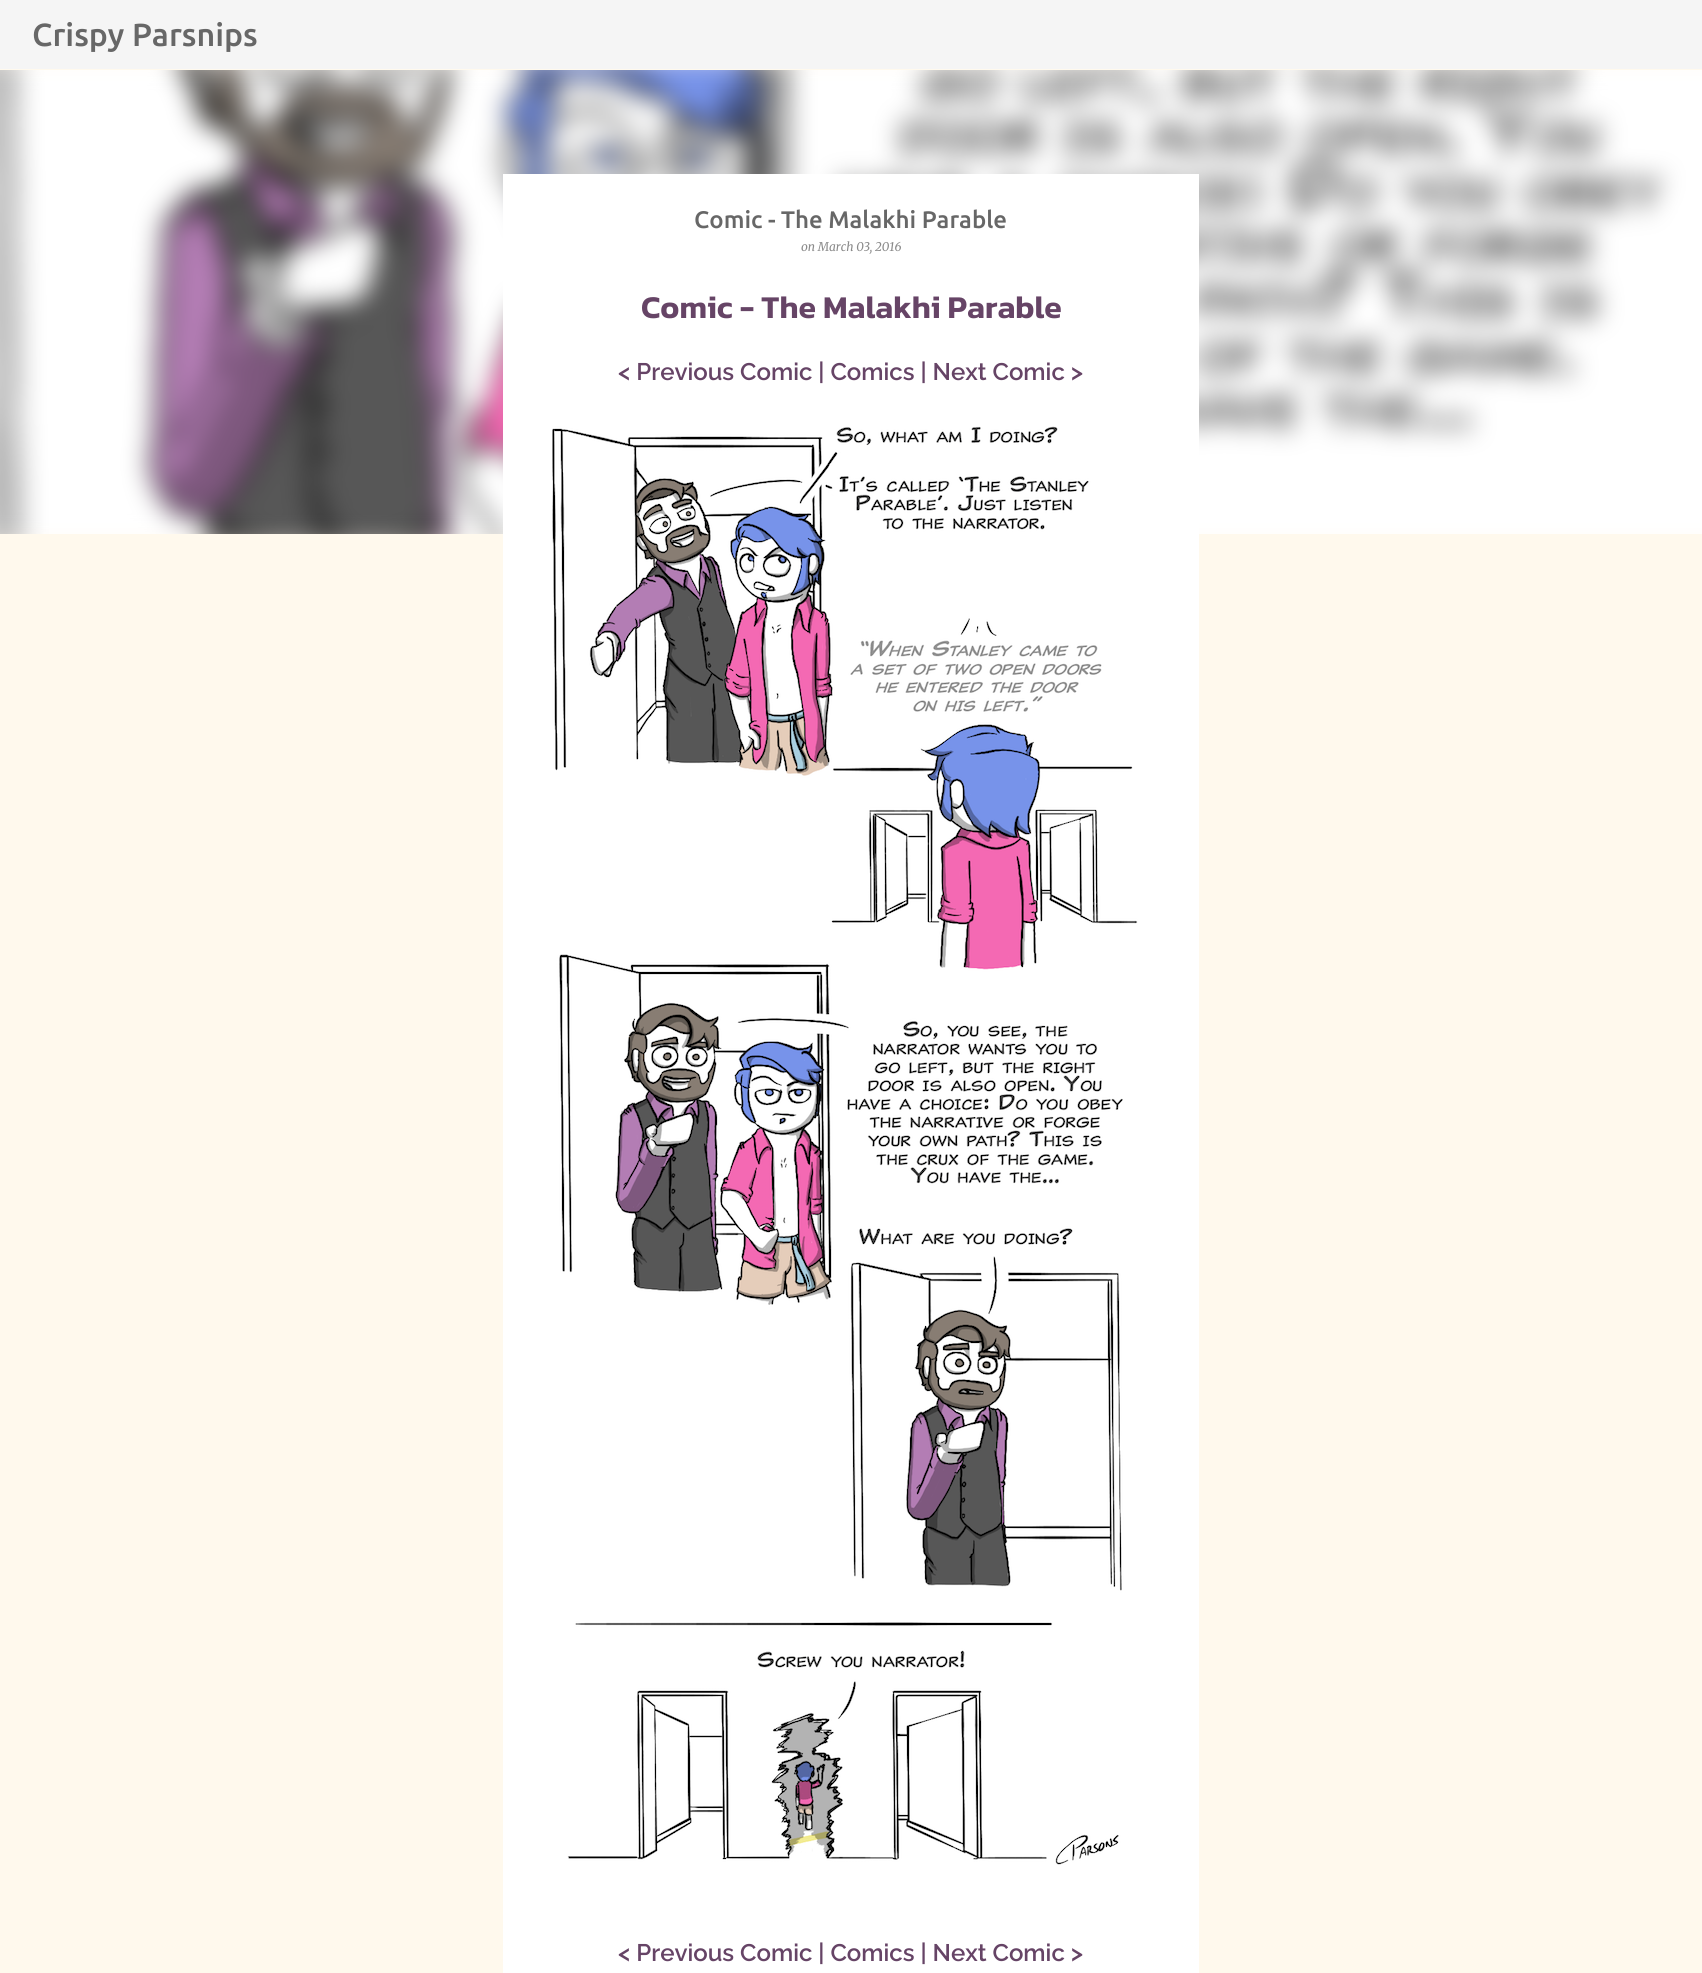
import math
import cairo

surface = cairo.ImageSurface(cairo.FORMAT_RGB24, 1702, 1973)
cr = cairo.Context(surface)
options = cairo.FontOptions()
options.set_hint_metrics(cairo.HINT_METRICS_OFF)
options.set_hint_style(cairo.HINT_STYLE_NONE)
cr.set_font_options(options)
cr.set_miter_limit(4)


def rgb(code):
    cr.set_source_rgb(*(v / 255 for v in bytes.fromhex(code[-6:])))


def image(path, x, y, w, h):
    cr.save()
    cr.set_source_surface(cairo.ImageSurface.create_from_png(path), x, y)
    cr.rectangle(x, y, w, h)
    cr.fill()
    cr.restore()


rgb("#fff9ed")
cr.paint()
rgb("#f5f5f5")
cr.rectangle(0, 0, 1702, 69)
cr.fill()
image("img/2.png", 0, 70, 1702, 464)
rgb("#ffffff")
cr.rectangle(503, 174, 696, 1799)
cr.fill()
image("img/1.png", 552, 426, 586, 1439)
cr.select_font_face("Ubuntu Medium")
cr.set_font_size(32)
rgb("#676767")
cr.move_to(32, 46)
cr.show_text("Crispy Parsnips")
cr.set_font_size(24)
cr.move_to(694, 228)
cr.show_text("Comic - The Malakhi Parable")
cr.select_font_face("Merriweather", cairo.FONT_SLANT_ITALIC)
cr.set_font_size(12)
rgb("#8a8a8a")
cr.move_to(801, 251)
cr.show_text("on March 03, 2016")
cr.select_font_face("Kanit SemiBold")
cr.set_font_size(32)
rgb("#664466")
cr.move_to(641, 318)
cr.show_text("Comic - The Malakhi Parable")
cr.select_font_face("Raleway SemiBold")
cr.set_font_size(24)
cr.move_to(618, 380)
cr.show_text("< Previous Comic | Comics | Next Comic >")
cr.move_to(618, 1961)
cr.show_text("< Previous Comic | Comics | Next Comic >")
surface.write_to_png("page.png")
